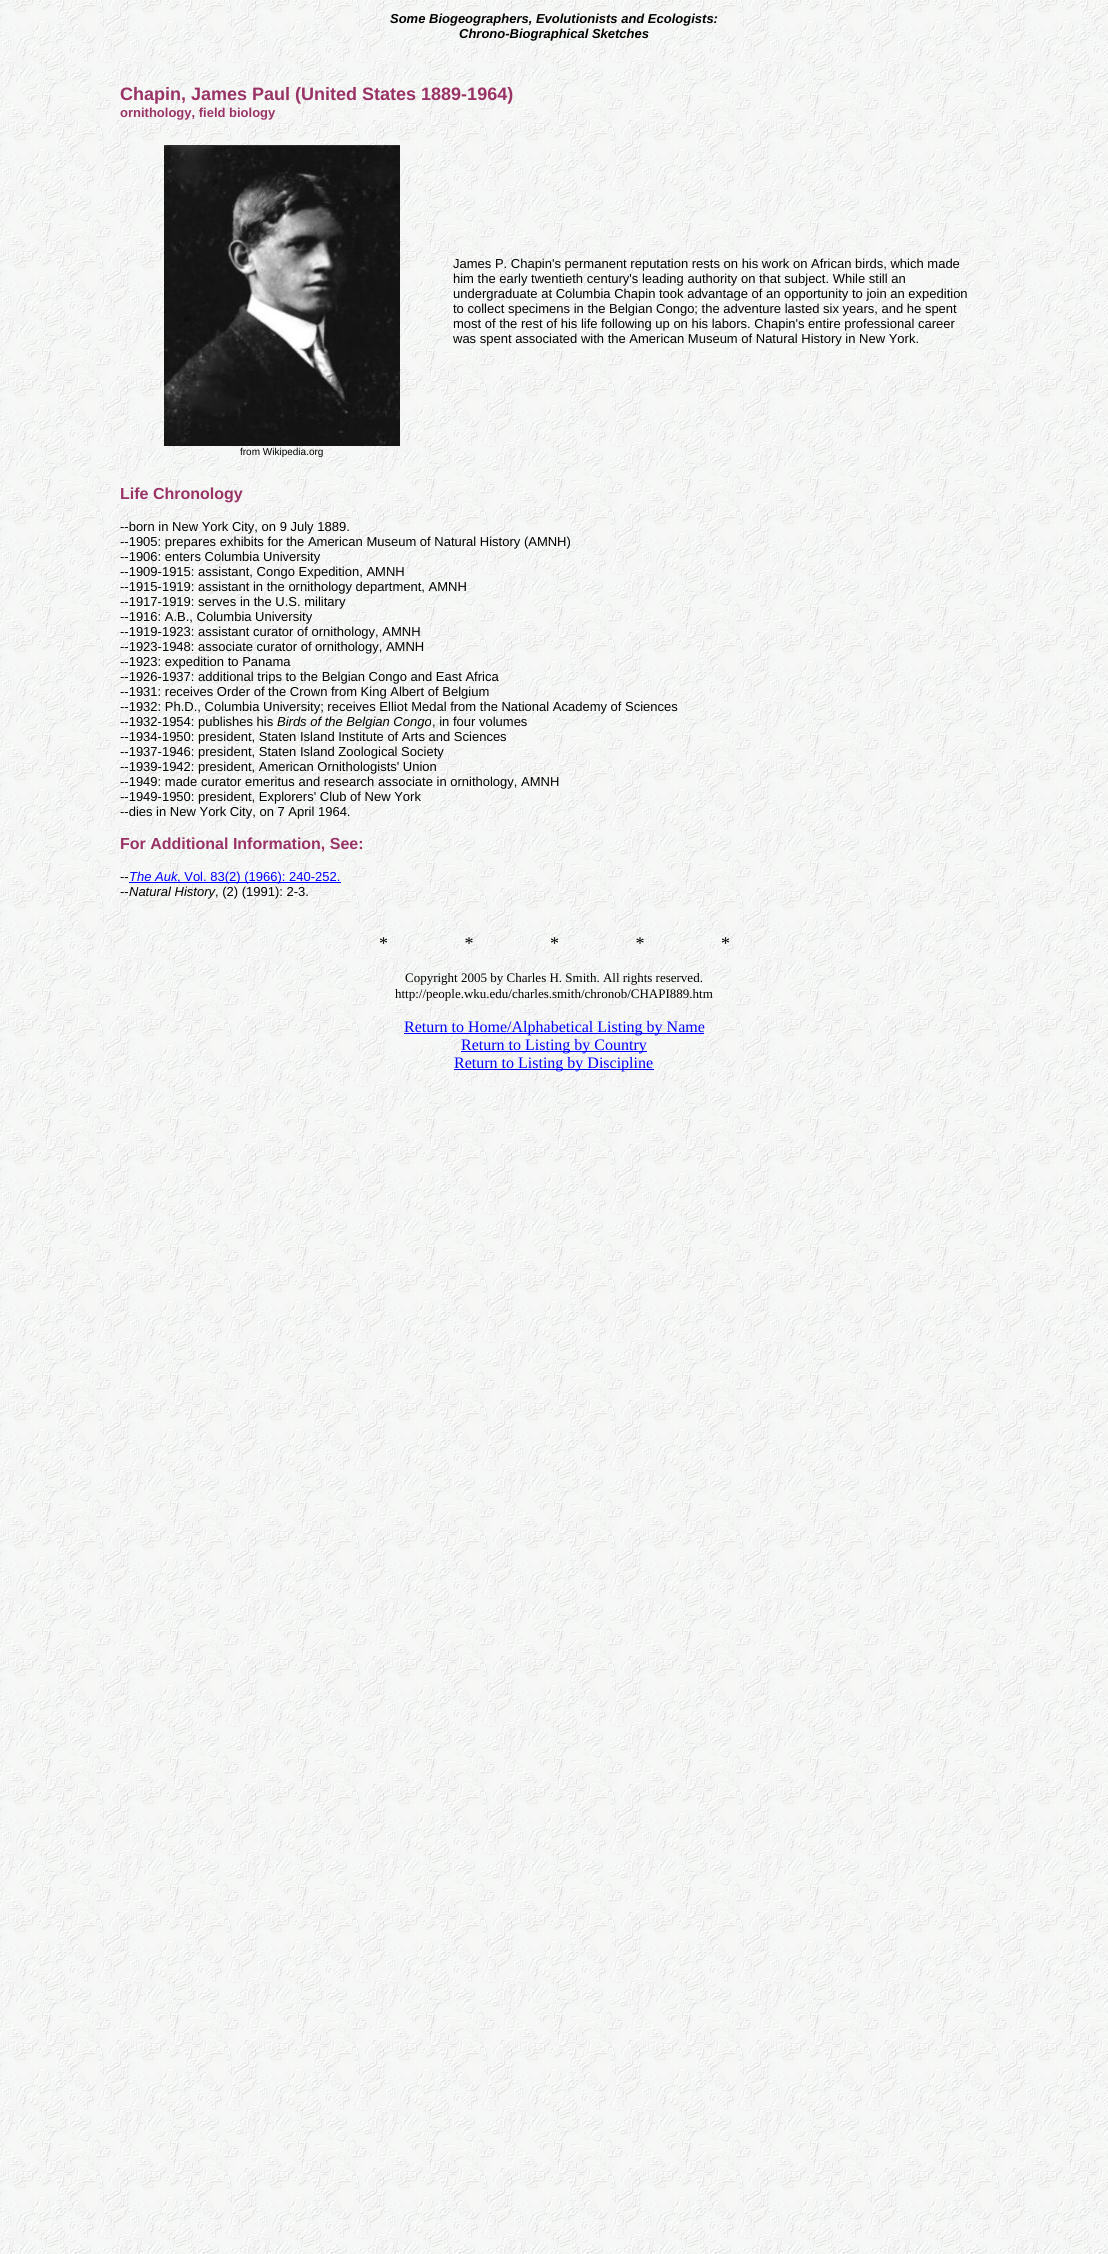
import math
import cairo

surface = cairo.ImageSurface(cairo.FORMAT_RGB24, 1108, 2254)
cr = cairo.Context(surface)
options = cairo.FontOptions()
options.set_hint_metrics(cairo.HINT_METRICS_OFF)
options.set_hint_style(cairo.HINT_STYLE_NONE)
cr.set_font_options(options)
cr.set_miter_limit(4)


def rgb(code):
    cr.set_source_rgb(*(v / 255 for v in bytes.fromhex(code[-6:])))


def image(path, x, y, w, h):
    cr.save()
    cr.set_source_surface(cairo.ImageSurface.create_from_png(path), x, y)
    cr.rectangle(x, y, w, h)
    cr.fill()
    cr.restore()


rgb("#ffffff")
cr.paint()
image("img/1.png", 0, 0, 1108, 2254)
image("img/2.png", 164, 145, 236, 301)
for x, y, w, h, color in [
    (129, 882, 212, 1, "#0000ff"),
    (404, 1033, 300, 1, "#0000ff"),
    (461, 1051, 186, 1, "#0000ff"),
    (454, 1069, 200, 1, "#0000ff"),
]:
    rgb(color)
    cr.rectangle(x, y, w, h)
    cr.fill()
cr.select_font_face("Liberation Sans", cairo.FONT_SLANT_ITALIC, cairo.FONT_WEIGHT_BOLD)
cr.set_font_size(13)
rgb("#000000")
cr.move_to(390, 23)
cr.show_text("Some Biogeographers, Evolutionists and Ecologists:")
cr.move_to(459, 38)
cr.show_text("Chrono-Biographical Sketches")
cr.select_font_face("Liberation Sans", cairo.FONT_SLANT_NORMAL, cairo.FONT_WEIGHT_BOLD)
cr.set_font_size(18)
rgb("#993366")
cr.move_to(120, 100)
cr.show_text("Chapin, James Paul (United States 1889-1964)")
cr.set_font_size(13)
cr.move_to(120, 117)
cr.show_text("ornithology, field biology")
cr.select_font_face("Liberation Sans")
rgb("#000000")
for x, y, s in [
    (453, 268, "James P. Chapin's permanent reputation rests on his work on African birds, which made"),
    (453, 283, "him the early twentieth century's leading authority on that subject. While still an"),
    (453, 298, "undergraduate at Columbia Chapin took advantage of an opportunity to join an expedition"),
    (453, 313, "to collect specimens in the Belgian Congo; the adventure lasted six years, and he spent"),
    (453, 328, "most of the rest of his life following up on his labors. Chapin's entire professional career"),
    (453, 343, "was spent associated with the American Museum of Natural History in New York."),
]:
    cr.move_to(x, y)
    cr.show_text(s)
cr.set_font_size(10)
cr.move_to(240, 455)
cr.show_text("from Wikipedia.org")
cr.select_font_face("Liberation Sans", cairo.FONT_SLANT_NORMAL, cairo.FONT_WEIGHT_BOLD)
cr.set_font_size(16)
rgb("#993366")
cr.move_to(120, 499)
cr.show_text("Life Chronology")
cr.select_font_face("Liberation Sans")
cr.set_font_size(13)
rgb("#000000")
for x, y, s in [
    (120, 531, "--born in New York City, on 9 July 1889."),
    (120, 546, "--1905: prepares exhibits for the American Museum of Natural History (AMNH)"),
    (120, 561, "--1906: enters Columbia University"),
    (120, 576, "--1909-1915: assistant, Congo Expedition, AMNH"),
    (120, 591, "--1915-1919: assistant in the ornithology department, AMNH"),
    (120, 606, "--1917-1919: serves in the U.S. military"),
    (120, 621, "--1916: A.B., Columbia University"),
    (120, 636, "--1919-1923: assistant curator of ornithology, AMNH"),
    (120, 651, "--1923-1948: associate curator of ornithology, AMNH"),
    (120, 666, "--1923: expedition to Panama"),
    (120, 681, "--1926-1937: additional trips to the Belgian Congo and East Africa"),
    (120, 696, "--1931: receives Order of the Crown from King Albert of Belgium"),
    (120, 711, "--1932: Ph.D., Columbia University; receives Elliot Medal from the National Academy of Sciences"),
    (120, 726, "--1932-1954: publishes his"),
]:
    cr.move_to(x, y)
    cr.show_text(s)
cr.select_font_face("Liberation Sans", cairo.FONT_SLANT_ITALIC)
cr.move_to(277, 726)
cr.show_text("Birds of the Belgian Congo")
cr.select_font_face("Liberation Sans")
for x, y, s in [
    (432, 726, ", in four volumes"),
    (120, 741, "--1934-1950: president, Staten Island Institute of Arts and Sciences"),
    (120, 756, "--1937-1946: president, Staten Island Zoological Society"),
    (120, 771, "--1939-1942: president, American Ornithologists' Union"),
    (120, 786, "--1949: made curator emeritus and research associate in ornithology, AMNH"),
    (120, 801, "--1949-1950: president, Explorers' Club of New York"),
    (120, 816, "--dies in New York City, on 7 April 1964."),
]:
    cr.move_to(x, y)
    cr.show_text(s)
cr.select_font_face("Liberation Sans", cairo.FONT_SLANT_NORMAL, cairo.FONT_WEIGHT_BOLD)
cr.set_font_size(16)
rgb("#993366")
cr.move_to(120, 849)
cr.show_text("For Additional Information, See:")
cr.select_font_face("Liberation Sans")
cr.set_font_size(13)
rgb("#000000")
cr.move_to(120, 881)
cr.show_text("--")
cr.select_font_face("Liberation Sans", cairo.FONT_SLANT_ITALIC)
rgb("#0000ff")
cr.move_to(129, 881)
cr.show_text("The Auk")
cr.select_font_face("Liberation Sans")
cr.move_to(177, 881)
cr.show_text(", Vol. 83(2) (1966): 240-252.")
rgb("#000000")
cr.move_to(120, 896)
cr.show_text("--")
cr.select_font_face("Liberation Sans", cairo.FONT_SLANT_ITALIC)
cr.move_to(129, 896)
cr.show_text("Natural History")
cr.select_font_face("Liberation Sans")
cr.move_to(215, 896)
cr.show_text(", (2) (1991): 2-3.")
cr.select_font_face("Liberation Serif")
cr.set_font_size(18)
cr.move_to(379, 949)
cr.show_text("*                 *                 *                 *                 *")
cr.set_font_size(13)
cr.move_to(405, 982)
cr.show_text("Copyright 2005 by Charles H. Smith. All rights reserved.")
cr.move_to(395, 998)
cr.show_text("http://people.wku.edu/charles.smith/chronob/CHAPI889.htm")
cr.set_font_size(16)
rgb("#0000ff")
for x, y, s in [
    (404, 1032, "Return to Home/Alphabetical Listing by Name"),
    (461, 1050, "Return to Listing by Country"),
    (454, 1068, "Return to Listing by Discipline"),
]:
    cr.move_to(x, y)
    cr.show_text(s)
surface.write_to_png("page.png")
